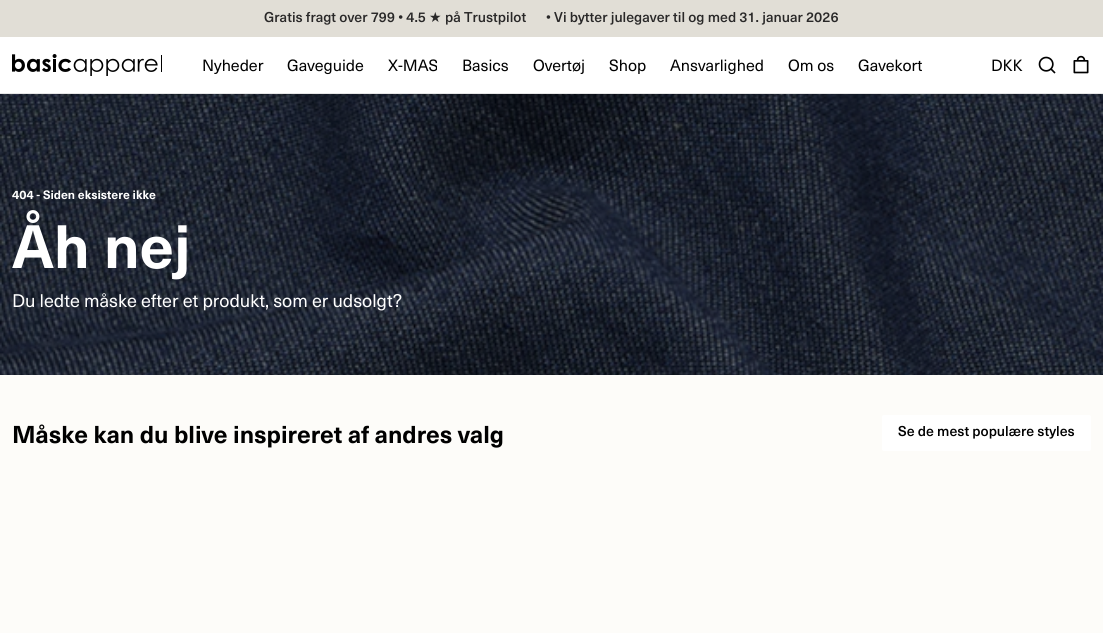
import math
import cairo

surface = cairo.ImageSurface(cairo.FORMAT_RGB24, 1103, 633)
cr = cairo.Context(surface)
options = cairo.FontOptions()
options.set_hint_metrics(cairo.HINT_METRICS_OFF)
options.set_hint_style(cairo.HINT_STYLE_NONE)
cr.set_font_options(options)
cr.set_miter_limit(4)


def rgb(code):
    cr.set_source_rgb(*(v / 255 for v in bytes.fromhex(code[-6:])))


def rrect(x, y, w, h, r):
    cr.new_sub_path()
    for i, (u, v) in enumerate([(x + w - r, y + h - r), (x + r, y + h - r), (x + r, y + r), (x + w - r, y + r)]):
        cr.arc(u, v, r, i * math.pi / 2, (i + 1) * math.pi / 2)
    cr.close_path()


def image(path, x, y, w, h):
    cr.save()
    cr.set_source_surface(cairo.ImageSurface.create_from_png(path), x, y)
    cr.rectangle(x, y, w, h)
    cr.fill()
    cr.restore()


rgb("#ffffff")
cr.paint()
rgb("#e1ded6")
cr.rectangle(0, 0, 1103, 37)
cr.fill()
rgb("#e6e6e6")
cr.rectangle(0, 93, 1103, 1)
cr.fill()
image("img/1.png", 12, 54, 150, 22)
image("img/2.png", 1038, 56, 18, 18)
image("img/3.png", 1073, 55, 16, 19)
rgb("#fdfcf9")
cr.rectangle(0, 375, 1103, 258)
cr.fill()
image("img/4.png", 0, 94, 1103, 281)
rgb("#ffffff")
rrect(882, 415, 209, 36, 2)
cr.fill()
cr.select_font_face("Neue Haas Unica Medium")
cr.set_font_size(14)
rgb("#292828")
cr.move_to(264, 22)
cr.show_text("Gratis fragt over 799 • 4.5")
cr.select_font_face("DejaVu Sans")
cr.move_to(429, 22)
cr.show_text("★")
cr.select_font_face("Neue Haas Unica Medium")
cr.move_to(445, 22)
cr.show_text("på Trustpilot")
cr.move_to(546, 22)
cr.show_text("• Vi bytter julegaver til og med 31. januar 2026")
cr.select_font_face("Neue Haas Unica")
cr.set_font_size(16)
rgb("#000000")
for x, y, s in [
    (202, 71, "Nyheder"),
    (287, 71, "Gaveguide"),
    (388, 71, "X-MAS"),
    (462, 71, "Basics"),
    (533, 71, "Overtøj"),
    (609, 71, "Shop"),
    (670, 71, "Ansvarlighed"),
    (788, 71, "Om os"),
    (858, 71, "Gavekort"),
    (991, 71, "DKK"),
]:
    cr.move_to(x, y)
    cr.show_text(s)
cr.select_font_face("Neue Haas Unica", cairo.FONT_SLANT_NORMAL, cairo.FONT_WEIGHT_BOLD)
cr.set_font_size(12)
rgb("#ffffff")
cr.move_to(12, 199)
cr.show_text("404 - Siden eksistere ikke")
cr.set_font_size(60)
cr.move_to(12, 268)
cr.show_text("Åh nej")
cr.select_font_face("Neue Haas Unica")
cr.set_font_size(18)
cr.move_to(12, 307)
cr.show_text("Du ledte måske efter et produkt, som er udsolgt?")
cr.select_font_face("Neue Haas Unica", cairo.FONT_SLANT_NORMAL, cairo.FONT_WEIGHT_BOLD)
cr.set_font_size(24)
rgb("#000000")
cr.move_to(12, 443)
cr.show_text("Måske kan du blive inspireret af andres valg")
cr.select_font_face("Neue Haas Unica Medium")
cr.set_font_size(14)
cr.move_to(898, 436)
cr.show_text("Se de mest populære styles")
surface.write_to_png("page.png")
